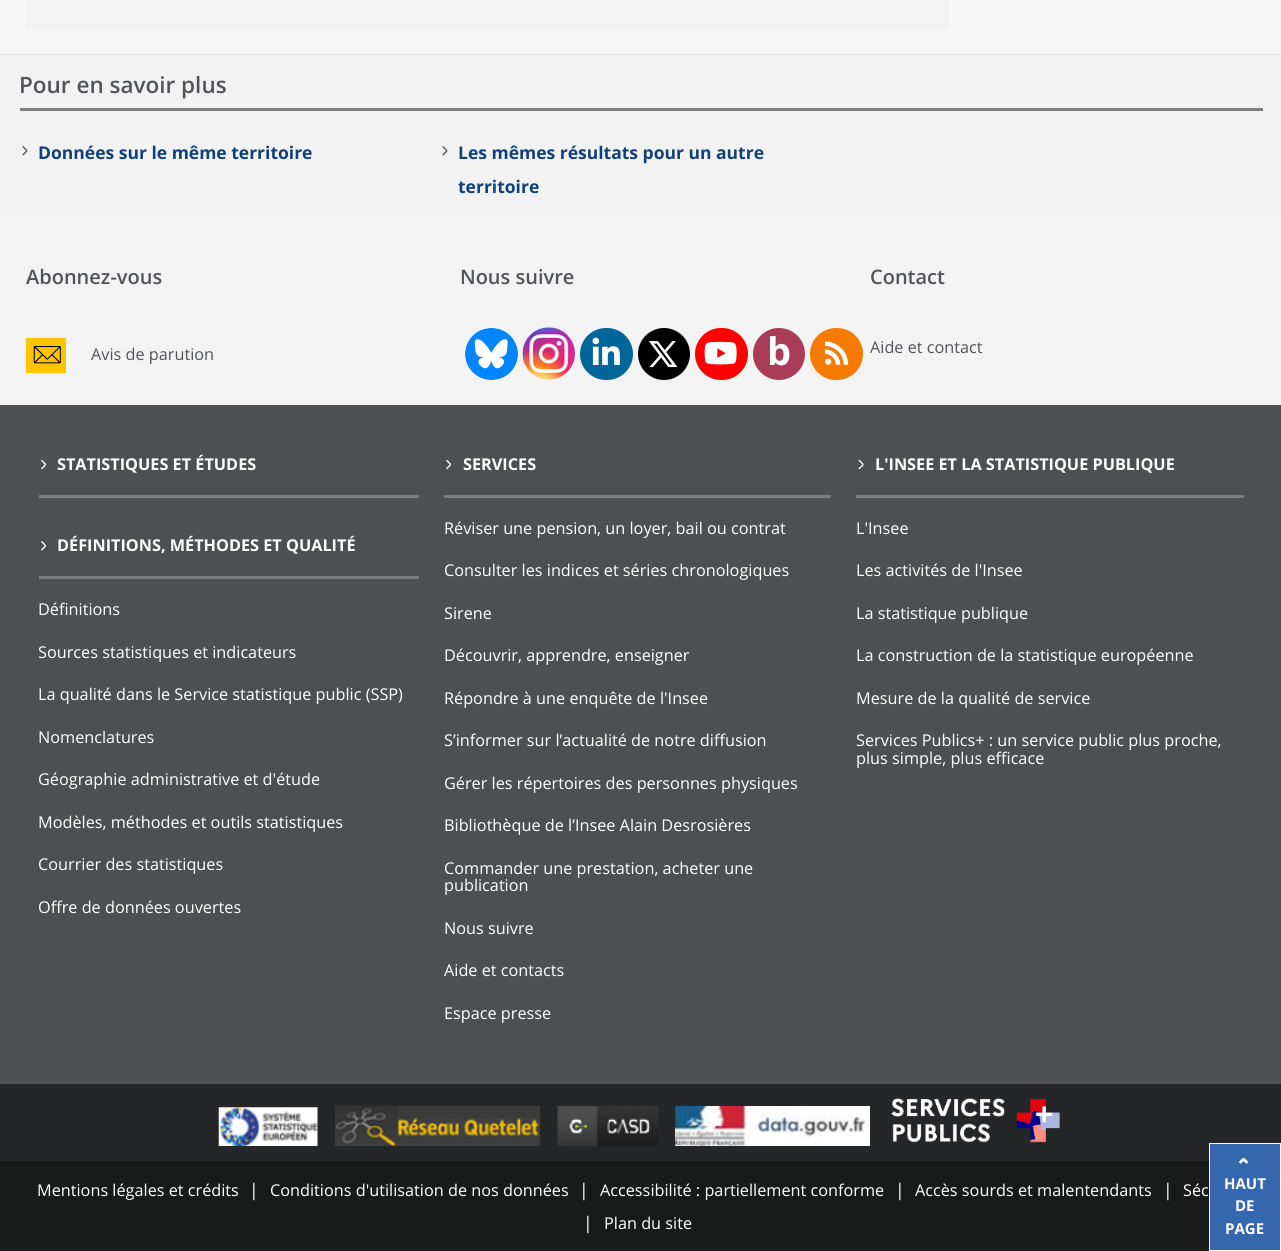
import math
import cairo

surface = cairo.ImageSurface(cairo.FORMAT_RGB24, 1281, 1251)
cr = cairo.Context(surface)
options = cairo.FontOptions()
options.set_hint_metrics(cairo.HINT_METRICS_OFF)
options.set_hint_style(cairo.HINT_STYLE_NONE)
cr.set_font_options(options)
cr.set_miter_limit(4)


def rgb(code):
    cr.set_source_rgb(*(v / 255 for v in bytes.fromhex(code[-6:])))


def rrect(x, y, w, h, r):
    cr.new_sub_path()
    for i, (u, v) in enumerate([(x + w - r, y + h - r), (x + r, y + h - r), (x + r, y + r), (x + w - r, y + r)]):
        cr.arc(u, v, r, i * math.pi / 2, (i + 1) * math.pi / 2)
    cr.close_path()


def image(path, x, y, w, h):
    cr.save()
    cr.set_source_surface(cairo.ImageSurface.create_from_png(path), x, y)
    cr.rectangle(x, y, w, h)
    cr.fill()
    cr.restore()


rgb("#f7f7f7")
cr.paint()
for x, y, w, h, color in [
    (26, 0, 923, 29, "#f3f3f3"),
    (0, 55, 1281, 166, "#f2f2f2"),
    (0, 54, 1281, 1, "#e5e5e5"),
    (20, 108, 1243, 3, "#7d7e80"),
]:
    rgb(color)
    cr.rectangle(x, y, w, h)
    cr.fill()
image("img/1.png", 22, 146, 6, 10)
image("img/1.png", 442, 146, 6, 10)
rgb("#f3f3f3")
cr.rectangle(0, 221, 1281, 184)
cr.fill()
rgb("#ffc400")
cr.rectangle(26, 338, 40, 35)
cr.fill()
image("img/2.png", 33, 346, 28, 18)
image("img/3.png", 465, 328, 53, 52)
image("img/4.png", 522, 327, 53, 53)
rgb("#006699")
rrect(580, 328, 53, 52, 26)
cr.fill()
image("img/5.png", 592, 337, 28, 28)
rgb("#000000")
cr.arc(664, 354, 26, 0, 2 * math.pi)
cr.fill()
image("img/6.png", 648, 341, 30, 27)
rgb("#ff0000")
rrect(695, 328, 53, 52, 26)
cr.fill()
image("img/7.png", 704, 341, 33, 24)
rgb("#aa3c59")
cr.arc(779, 354, 26, 0, 2 * math.pi)
cr.fill()
rgb("#f57b00")
rrect(810, 328, 53, 52, 26)
cr.fill()
image("img/8.png", 825, 341, 24, 24)
rgb("#4d4f52")
cr.rectangle(0, 405, 1281, 679)
cr.fill()
rgb("#7a7b7d")
cr.rectangle(39, 495, 380, 3)
cr.fill()
image("img/9.png", 41, 459, 6, 11)
cr.rectangle(39, 576, 380, 3)
cr.fill()
image("img/10.png", 41, 541, 6, 10)
cr.rectangle(444, 495, 387, 3)
cr.fill()
image("img/9.png", 446, 459, 6, 11)
cr.rectangle(856, 495, 388, 3)
cr.fill()
image("img/11.png", 858, 459, 6, 11)
rgb("#252627")
cr.rectangle(0, 1084, 1281, 77)
cr.fill()
image("img/12.png", 218, 1107, 100, 39)
image("img/13.png", 335, 1106, 205, 40)
image("img/14.png", 557, 1106, 102, 40)
image("img/15.png", 675, 1106, 195, 40)
image("img/16.png", 891, 1098, 170, 45)
rgb("#191a1a")
cr.rectangle(0, 1161, 1209, 90)
cr.fill()
rgb("#3467ae")
cr.rectangle(1209.5, 1143.5, 71, 107)
cr.fill_preserve()
rgb("#ffffff")
cr.set_line_width(1)
cr.stroke()
image("img/17.png", 1238, 1157, 11, 7)
cr.select_font_face("Open Sans SemiBold")
cr.set_font_size(22.5)
rgb("#525457")
cr.move_to(19, 93)
cr.show_text("Pour en savoir plus")
cr.select_font_face("Open Sans", cairo.FONT_SLANT_NORMAL, cairo.FONT_WEIGHT_BOLD)
cr.set_font_size(17.5)
rgb("#0f417a")
for x, y, s in [
    (38, 159, "Données sur le même territoire"),
    (458, 159, "Les mêmes résultats pour un autre"),
    (458, 193, "territoire"),
]:
    cr.move_to(x, y)
    cr.show_text(s)
cr.select_font_face("Open Sans SemiBold")
cr.set_font_size(20)
rgb("#525457")
cr.move_to(26, 284)
cr.show_text("Abonnez-vous")
cr.select_font_face("Open Sans")
cr.set_font_size(16.25)
cr.move_to(91, 360)
cr.show_text("Avis de parution")
cr.select_font_face("Open Sans SemiBold")
cr.set_font_size(20)
cr.move_to(460, 284)
cr.show_text("Nous suivre")
cr.select_font_face("Open Sans", cairo.FONT_SLANT_NORMAL, cairo.FONT_WEIGHT_BOLD)
cr.set_font_size(38)
rgb("#ffffff")
cr.move_to(767, 365)
cr.show_text("b")
cr.select_font_face("Open Sans SemiBold")
cr.set_font_size(20)
rgb("#525457")
cr.move_to(870, 284)
cr.show_text("Contact")
cr.select_font_face("Open Sans")
cr.set_font_size(16.25)
cr.move_to(870, 353)
cr.show_text("Aide et contact")
cr.select_font_face("Open Sans", cairo.FONT_SLANT_NORMAL, cairo.FONT_WEIGHT_BOLD)
rgb("#ffffff")
cr.move_to(57, 470)
cr.show_text("STATISTIQUES ET ÉTUDES")
cr.move_to(57, 551)
cr.show_text("DÉFINITIONS, MÉTHODES ET QUALITÉ")
cr.select_font_face("Open Sans")
for x, y, s in [
    (38, 615, "Définitions"),
    (38, 658, "Sources statistiques et indicateurs"),
    (38, 700, "La qualité dans le Service statistique public (SSP)"),
    (38, 743, "Nomenclatures"),
    (38, 785, "Géographie administrative et d'étude"),
    (38, 828, "Modèles, méthodes et outils statistiques"),
    (38, 870, "Courrier des statistiques"),
    (38, 913, "Offre de données ouvertes"),
]:
    cr.move_to(x, y)
    cr.show_text(s)
cr.select_font_face("Open Sans", cairo.FONT_SLANT_NORMAL, cairo.FONT_WEIGHT_BOLD)
cr.move_to(463, 470)
cr.show_text("SERVICES")
cr.select_font_face("Open Sans")
for x, y, s in [
    (444, 534, "Réviser une pension, un loyer, bail ou contrat"),
    (444, 576, "Consulter les indices et séries chronologiques"),
    (444, 619, "Sirene"),
    (444, 661, "Découvrir, apprendre, enseigner"),
    (444, 704, "Répondre à une enquête de l'Insee"),
    (444, 746, "S’informer sur l’actualité de notre diffusion"),
    (444, 789, "Gérer les répertoires des personnes physiques"),
    (444, 831, "Bibliothèque de l’Insee Alain Desrosières"),
    (444, 874, "Commander une prestation, acheter une"),
    (444, 891, "publication"),
    (444, 934, "Nous suivre"),
    (444, 976, "Aide et contacts"),
    (444, 1019, "Espace presse"),
]:
    cr.move_to(x, y)
    cr.show_text(s)
cr.select_font_face("Open Sans", cairo.FONT_SLANT_NORMAL, cairo.FONT_WEIGHT_BOLD)
cr.move_to(875, 470)
cr.show_text("L'INSEE ET LA STATISTIQUE PUBLIQUE")
cr.select_font_face("Open Sans")
for x, y, s in [
    (856, 534, "L'Insee"),
    (856, 576, "Les activités de l'Insee"),
    (856, 619, "La statistique publique"),
    (856, 661, "La construction de la statistique européenne"),
    (856, 704, "Mesure de la qualité de service"),
    (856, 746, "Services Publics+ : un service public plus proche,"),
    (856, 764, "plus simple, plus efficace"),
    (37, 1196, "Mentions légales et crédits"),
]:
    cr.move_to(x, y)
    cr.show_text(s)
cr.set_font_size(17.5)
cr.move_to(249, 1196)
cr.show_text("|")
cr.set_font_size(16.25)
cr.move_to(270, 1196)
cr.show_text("Conditions d'utilisation de nos données")
cr.set_font_size(17.5)
cr.move_to(579, 1196)
cr.show_text("|")
cr.set_font_size(16.25)
cr.move_to(600, 1196)
cr.show_text("Accessibilité : partiellement conforme")
cr.set_font_size(17.5)
cr.move_to(895, 1196)
cr.show_text("|")
cr.set_font_size(16.25)
cr.move_to(915, 1196)
cr.show_text("Accès sourds et malentendants")
cr.set_font_size(17.5)
cr.move_to(1163, 1196)
cr.show_text("|")
cr.set_font_size(16.25)
cr.move_to(1183, 1196)
cr.show_text("Séc")
cr.set_font_size(17.5)
cr.move_to(583, 1229)
cr.show_text("|")
cr.set_font_size(16.25)
cr.move_to(604, 1229)
cr.show_text("Plan du site")
cr.select_font_face("Open Sans", cairo.FONT_SLANT_NORMAL, cairo.FONT_WEIGHT_BOLD)
cr.set_font_size(15)
for x, y, s in [
    (1224, 1189, "HAUT"),
    (1235, 1211, "DE"),
    (1225, 1234, "PAGE"),
]:
    cr.move_to(x, y)
    cr.show_text(s)
surface.write_to_png("page.png")
